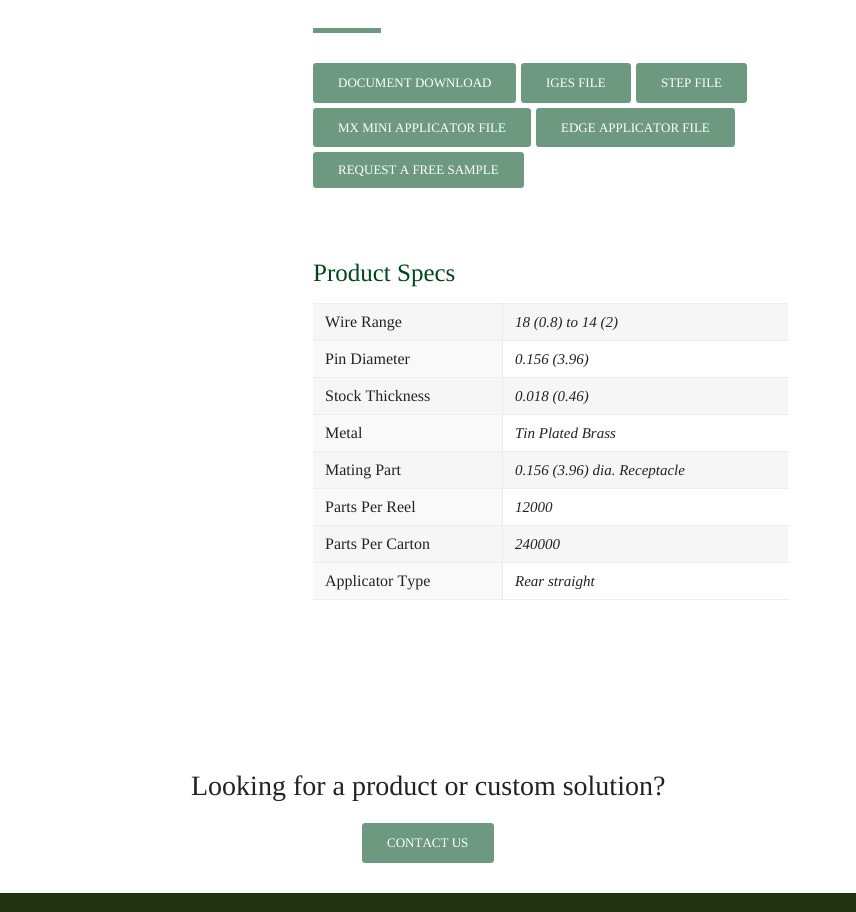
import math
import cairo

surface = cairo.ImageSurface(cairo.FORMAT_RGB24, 856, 912)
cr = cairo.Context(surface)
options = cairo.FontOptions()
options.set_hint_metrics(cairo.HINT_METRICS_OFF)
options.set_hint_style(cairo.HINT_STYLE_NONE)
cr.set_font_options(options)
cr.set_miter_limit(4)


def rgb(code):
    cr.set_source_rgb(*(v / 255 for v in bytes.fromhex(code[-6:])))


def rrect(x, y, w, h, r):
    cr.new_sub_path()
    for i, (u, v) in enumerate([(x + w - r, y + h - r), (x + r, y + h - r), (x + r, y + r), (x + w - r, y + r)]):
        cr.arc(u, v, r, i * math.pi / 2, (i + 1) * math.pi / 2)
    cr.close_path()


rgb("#ffffff")
cr.paint()
rgb("#6c9980")
cr.rectangle(313, 28, 68, 5)
cr.fill()
rrect(313, 63, 203, 40, 3)
cr.fill()
rrect(521, 63, 110, 40, 3)
cr.fill()
rrect(636, 63, 111, 40, 3)
cr.fill()
rrect(313, 108, 218, 39, 3)
cr.fill()
rrect(536, 108, 199, 39, 3)
cr.fill()
rrect(313, 152, 211, 36, 3)
cr.fill()
for x, y, w, h, color in [
    (313, 303, 475, 1, "#eeeeee"),
    (313, 304, 475, 36, "#f6f6f6"),
    (313, 378, 475, 36, "#f6f6f6"),
    (313, 452, 475, 36, "#f6f6f6"),
    (313, 526, 475, 36, "#f6f6f6"),
    (502, 562, 1, 38, "#e1eef4"),
    (502, 562, 287, 1, "#eeeeee"),
    (502, 525, 1, 38, "#e1eef4"),
    (502, 525, 287, 1, "#eeeeee"),
    (502, 488, 1, 38, "#e1eef4"),
    (502, 488, 287, 1, "#eeeeee"),
    (502, 451, 1, 38, "#e1eef4"),
    (502, 451, 287, 1, "#eeeeee"),
    (502, 414, 1, 38, "#e1eef4"),
    (502, 414, 287, 1, "#eeeeee"),
    (502, 377, 1, 38, "#e1eef4"),
    (502, 377, 287, 1, "#eeeeee"),
    (502, 340, 1, 38, "#e1eef4"),
    (502, 340, 287, 1, "#eeeeee"),
    (502, 303, 1, 38, "#e1eef4"),
    (312, 340, 191, 1, "#eeeeee"),
    (313, 341, 189, 36, "#f9f9f9"),
    (312, 377, 191, 1, "#eeeeee"),
    (312, 414, 191, 1, "#eeeeee"),
    (313, 415, 189, 36, "#f9f9f9"),
    (312, 451, 191, 1, "#eeeeee"),
    (312, 488, 191, 1, "#eeeeee"),
    (313, 489, 189, 36, "#f9f9f9"),
    (312, 525, 191, 1, "#eeeeee"),
    (312, 562, 191, 1, "#eeeeee"),
    (503, 599, 286, 1, "#eeeeee"),
    (313, 563, 189, 36, "#f9f9f9"),
    (312, 599, 191, 1, "#eeeeee"),
]:
    rgb(color)
    cr.rectangle(x, y, w, h)
    cr.fill()
rgb("#6c9980")
rrect(362, 823, 132, 40, 3)
cr.fill()
rgb("#1f3311")
cr.rectangle(0, 893, 856, 19)
cr.fill()
cr.select_font_face("Liberation Serif")
cr.set_font_size(13)
rgb("#ffffff")
for x, y, s in [
    (338, 87, "DOCUMENT DOWNLOAD"),
    (546, 87, "IGES FILE"),
    (661, 87, "STEP FILE"),
    (338, 132, "MX MINI APPLICATOR FILE"),
    (561, 132, "EDGE APPLICATOR FILE"),
    (338, 174, "REQUEST A FREE SAMPLE"),
]:
    cr.move_to(x, y)
    cr.show_text(s)
cr.set_font_size(25)
rgb("#00461b")
cr.move_to(313, 281)
cr.show_text("Product Specs")
cr.set_font_size(16)
rgb("#222222")
cr.move_to(325, 327)
cr.show_text("Wire Range")
cr.select_font_face("Liberation Serif", cairo.FONT_SLANT_ITALIC)
cr.set_font_size(15)
cr.move_to(515, 327)
cr.show_text("18 (0.8) to 14 (2)")
cr.select_font_face("Liberation Serif")
cr.set_font_size(16)
cr.move_to(325, 364)
cr.show_text("Pin Diameter")
cr.select_font_face("Liberation Serif", cairo.FONT_SLANT_ITALIC)
cr.set_font_size(15)
cr.move_to(515, 364)
cr.show_text("0.156 (3.96)")
cr.select_font_face("Liberation Serif")
cr.set_font_size(16)
cr.move_to(325, 401)
cr.show_text("Stock Thickness")
cr.select_font_face("Liberation Serif", cairo.FONT_SLANT_ITALIC)
cr.set_font_size(15)
cr.move_to(515, 401)
cr.show_text("0.018 (0.46)")
cr.select_font_face("Liberation Serif")
cr.set_font_size(16)
cr.move_to(325, 438)
cr.show_text("Metal")
cr.select_font_face("Liberation Serif", cairo.FONT_SLANT_ITALIC)
cr.set_font_size(15)
cr.move_to(515, 438)
cr.show_text("Tin Plated Brass")
cr.select_font_face("Liberation Serif")
cr.set_font_size(16)
cr.move_to(325, 475)
cr.show_text("Mating Part")
cr.select_font_face("Liberation Serif", cairo.FONT_SLANT_ITALIC)
cr.set_font_size(15)
cr.move_to(515, 475)
cr.show_text("0.156 (3.96) dia. Receptacle")
cr.select_font_face("Liberation Serif")
cr.set_font_size(16)
cr.move_to(325, 512)
cr.show_text("Parts Per Reel")
cr.select_font_face("Liberation Serif", cairo.FONT_SLANT_ITALIC)
cr.set_font_size(15)
cr.move_to(515, 512)
cr.show_text("12000")
cr.select_font_face("Liberation Serif")
cr.set_font_size(16)
cr.move_to(325, 549)
cr.show_text("Parts Per Carton")
cr.select_font_face("Liberation Serif", cairo.FONT_SLANT_ITALIC)
cr.set_font_size(15)
cr.move_to(515, 549)
cr.show_text("240000")
cr.select_font_face("Liberation Serif")
cr.set_font_size(16)
cr.move_to(325, 586)
cr.show_text("Applicator Type")
cr.select_font_face("Liberation Serif", cairo.FONT_SLANT_ITALIC)
cr.set_font_size(15)
cr.move_to(515, 586)
cr.show_text("Rear straight")
cr.select_font_face("Liberation Serif")
cr.set_font_size(28)
cr.move_to(191, 795)
cr.show_text("Looking for a product or custom solution?")
cr.set_font_size(13)
rgb("#ffffff")
cr.move_to(387, 847)
cr.show_text("CONTACT US")
surface.write_to_png("page.png")
